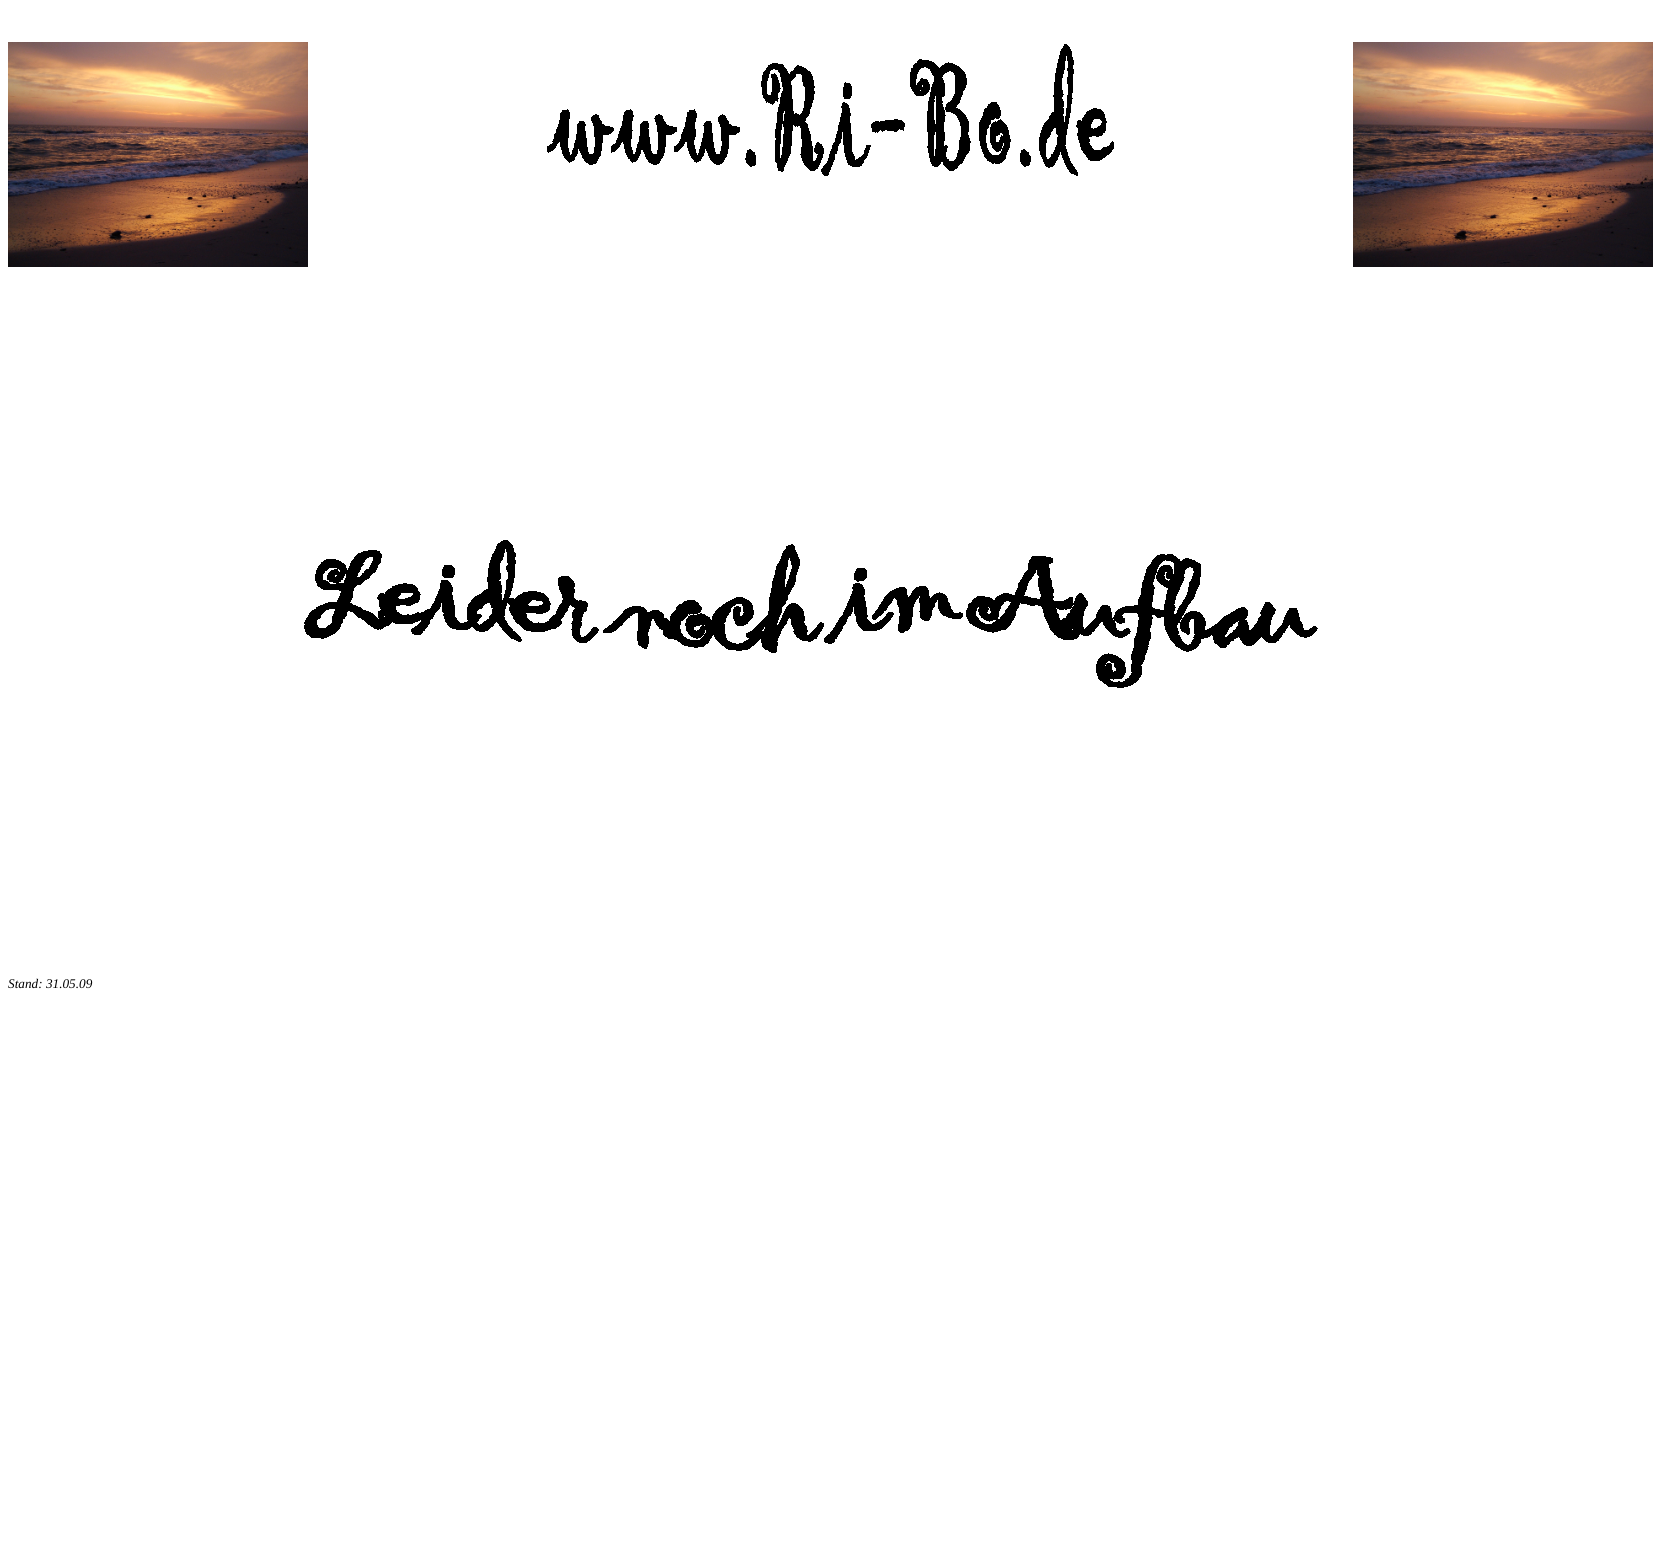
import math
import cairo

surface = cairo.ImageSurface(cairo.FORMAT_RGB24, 1661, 1564)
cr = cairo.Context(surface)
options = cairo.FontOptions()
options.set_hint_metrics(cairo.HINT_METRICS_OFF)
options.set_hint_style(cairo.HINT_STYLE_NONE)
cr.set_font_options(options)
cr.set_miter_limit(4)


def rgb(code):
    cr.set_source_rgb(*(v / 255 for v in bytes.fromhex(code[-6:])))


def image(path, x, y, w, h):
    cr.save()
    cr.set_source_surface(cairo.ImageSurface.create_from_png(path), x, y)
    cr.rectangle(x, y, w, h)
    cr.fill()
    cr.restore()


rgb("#ffffff")
cr.paint()
image("img/1.png", 8, 42, 300, 225)
image("img/2.png", 547, 44, 567, 132)
image("img/3.png", 1353, 42, 300, 225)
image("img/4.png", 304, 540, 1014, 148)
cr.select_font_face("Liberation Serif", cairo.FONT_SLANT_ITALIC)
cr.set_font_size(13.25)
rgb("#000000")
cr.move_to(8, 988)
cr.show_text("Stand: 31.05.09")
surface.write_to_png("page.png")
